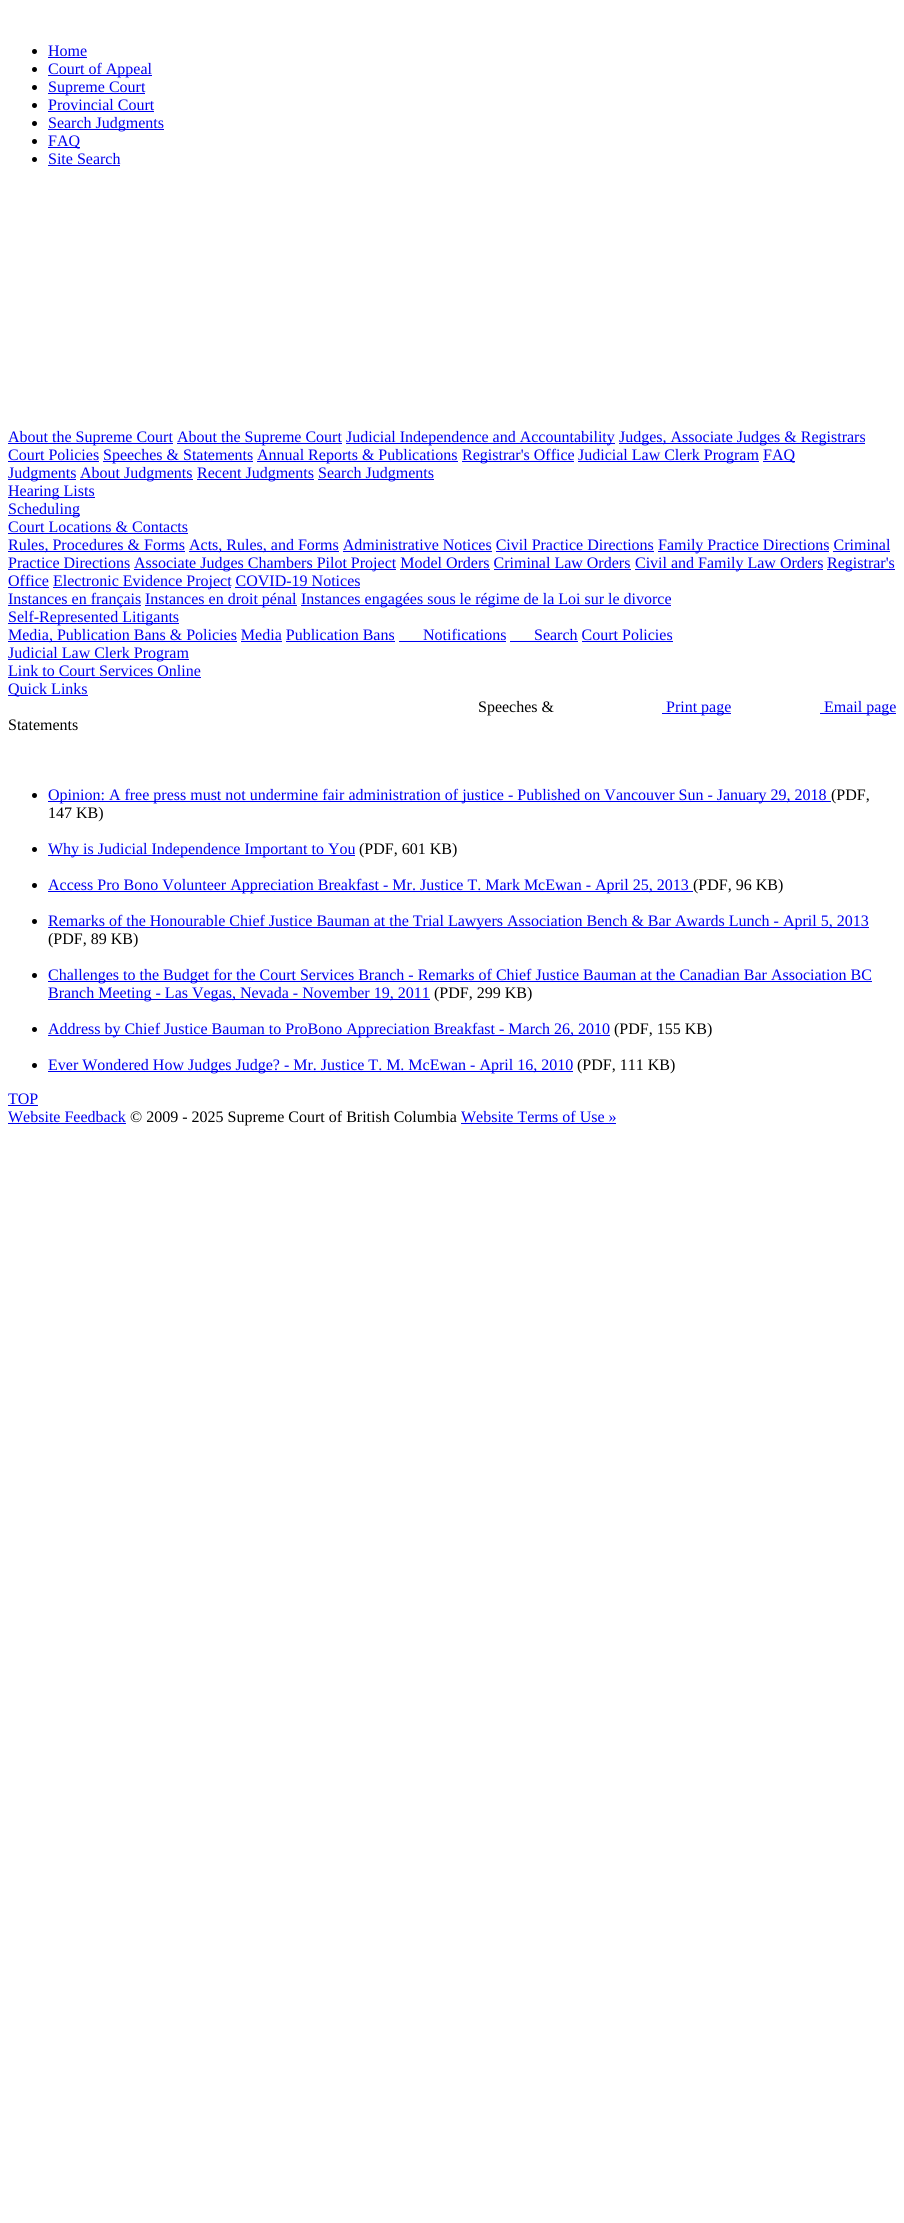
import math
import cairo

surface = cairo.ImageSurface(cairo.FORMAT_RGB24, 904, 2223)
cr = cairo.Context(surface)
options = cairo.FontOptions()
options.set_hint_metrics(cairo.HINT_METRICS_OFF)
options.set_hint_style(cairo.HINT_STYLE_NONE)
cr.set_font_options(options)
cr.set_miter_limit(4)


def rgb(code):
    cr.set_source_rgb(*(v / 255 for v in bytes.fromhex(code[-6:])))


rgb("#ffffff")
cr.paint()
rgb("#000000")
cr.arc(34.5, 51.5, 2.5, 0, 2 * math.pi)
cr.fill()
rgb("#0000ee")
cr.rectangle(48, 57, 39, 1)
cr.fill()
rgb("#000000")
cr.arc(34.5, 69.5, 2.5, 0, 2 * math.pi)
cr.fill()
rgb("#0000ee")
cr.rectangle(48, 75, 104, 1)
cr.fill()
rgb("#000000")
cr.arc(34.5, 87.5, 2.5, 0, 2 * math.pi)
cr.fill()
rgb("#0000ee")
cr.rectangle(48, 93, 97, 1)
cr.fill()
rgb("#000000")
cr.arc(34.5, 105.5, 2.5, 0, 2 * math.pi)
cr.fill()
rgb("#0000ee")
cr.rectangle(48, 111, 106, 1)
cr.fill()
rgb("#000000")
cr.arc(34.5, 123.5, 2.5, 0, 2 * math.pi)
cr.fill()
rgb("#0000ee")
cr.rectangle(48, 129, 116, 1)
cr.fill()
rgb("#000000")
cr.arc(34.5, 141.5, 2.5, 0, 2 * math.pi)
cr.fill()
rgb("#0000ee")
cr.rectangle(48, 147, 32, 1)
cr.fill()
rgb("#000000")
cr.arc(34.5, 159.5, 2.5, 0, 2 * math.pi)
cr.fill()
for x, y, w, h, color in [
    (48, 165, 72, 1, "#0000ee"),
    (8, 443, 165, 1, "#0000ee"),
    (177, 443, 165, 1, "#0000ee"),
    (346, 443, 269, 1, "#0000ee"),
    (619, 443, 246, 1, "#0000ee"),
    (8, 461, 91, 1, "#0000ee"),
    (103, 461, 150, 1, "#0000ee"),
    (257, 461, 201, 1, "#0000ee"),
    (462, 461, 112, 1, "#0000ee"),
    (578, 461, 181, 1, "#0000ee"),
    (763, 461, 32, 1, "#0000ee"),
    (8, 479, 68, 1, "#0000ee"),
    (80, 479, 113, 1, "#0000ee"),
    (197, 479, 117, 1, "#0000ee"),
    (318, 479, 116, 1, "#0000ee"),
    (8, 497, 87, 1, "#0000ee"),
    (8, 515, 72, 1, "#0000ee"),
    (8, 533, 180, 1, "#0000ee"),
    (8, 551, 177, 1, "#0000ee"),
    (189, 551, 150, 1, "#0000ee"),
    (658, 551, 171, 1, "#0000ee"),
    (343, 551, 149, 1, "#0000ee"),
    (496, 551, 158, 1, "#0000ee"),
    (833, 551, 57, 1, "#0000ee"),
    (8, 569, 122, 1, "#0000ee"),
    (134, 569, 262, 1, "#0000ee"),
    (635, 569, 188, 1, "#0000ee"),
    (827, 569, 68, 1, "#0000ee"),
    (400, 569, 90, 1, "#0000ee"),
    (494, 569, 137, 1, "#0000ee"),
    (8, 587, 41, 1, "#0000ee"),
    (53, 587, 178, 1, "#0000ee"),
    (235, 587, 125, 1, "#0000ee"),
    (8, 605, 133, 1, "#0000ee"),
    (145, 605, 152, 1, "#0000ee"),
    (301, 605, 370, 1, "#0000ee"),
    (8, 623, 171, 1, "#0000ee"),
    (8, 641, 229, 1, "#0000ee"),
    (399, 641, 107, 1, "#0000ee"),
    (510, 641, 68, 1, "#0000ee"),
    (241, 641, 41, 1, "#0000ee"),
    (286, 641, 109, 1, "#0000ee"),
    (582, 641, 91, 1, "#0000ee"),
    (8, 659, 181, 1, "#0000ee"),
    (8, 677, 193, 1, "#0000ee"),
    (8, 695, 80, 1, "#0000ee"),
]:
    rgb(color)
    cr.rectangle(x, y, w, h)
    cr.fill()
rgb("#000000")
cr.arc(34.5, 795.5, 2.5, 0, 2 * math.pi)
cr.fill()
rgb("#0000ee")
cr.rectangle(48, 801, 783, 1)
cr.fill()
rgb("#000000")
cr.arc(34.5, 849.5, 2.5, 0, 2 * math.pi)
cr.fill()
rgb("#0000ee")
cr.rectangle(48, 855, 307, 1)
cr.fill()
rgb("#000000")
cr.arc(34.5, 885.5, 2.5, 0, 2 * math.pi)
cr.fill()
rgb("#0000ee")
cr.rectangle(48, 891, 645, 1)
cr.fill()
rgb("#000000")
cr.arc(34.5, 921.5, 2.5, 0, 2 * math.pi)
cr.fill()
rgb("#0000ee")
cr.rectangle(48, 927, 821, 1)
cr.fill()
rgb("#000000")
cr.arc(34.5, 975.5, 2.5, 0, 2 * math.pi)
cr.fill()
for x, y, w, h, color in [
    (48, 981, 356, 1, "#0000ee"),
    (404, 981, 468, 1, "#0000ee"),
    (48, 999, 382, 1, "#0000ee"),
]:
    rgb(color)
    cr.rectangle(x, y, w, h)
    cr.fill()
rgb("#000000")
cr.arc(34.5, 1029.5, 2.5, 0, 2 * math.pi)
cr.fill()
rgb("#0000ee")
cr.rectangle(48, 1035, 562, 1)
cr.fill()
rgb("#000000")
cr.arc(34.5, 1065.5, 2.5, 0, 2 * math.pi)
cr.fill()
for x, y, w, h, color in [
    (48, 1071, 525, 1, "#0000ee"),
    (8, 1105, 30, 1, "#0000ee"),
    (662, 713, 69, 1, "#0000ee"),
    (820, 713, 76, 1, "#0000ee"),
    (8, 1123, 118, 1, "#0000ee"),
    (461, 1123, 155, 1, "#0000ee"),
]:
    rgb(color)
    cr.rectangle(x, y, w, h)
    cr.fill()
cr.select_font_face("Liberation Serif")
cr.set_font_size(16)
for x, y, s in [
    (48, 56, "Home"),
    (48, 74, "Court of Appeal"),
    (48, 92, "Supreme Court"),
    (48, 110, "Provincial Court"),
    (48, 128, "Search Judgments"),
    (48, 146, "FAQ"),
    (48, 164, "Site Search"),
    (8, 442, "About the Supreme Court"),
    (177, 442, "About the Supreme Court"),
    (346, 442, "Judicial Independence and Accountability"),
    (619, 442, "Judges, Associate Judges & Registrars"),
    (8, 460, "Court Policies"),
    (103, 460, "Speeches & Statements"),
    (257, 460, "Annual Reports & Publications"),
    (462, 460, "Registrar's Office"),
    (578, 460, "Judicial Law Clerk Program"),
    (763, 460, "FAQ"),
    (8, 478, "Judgments"),
    (80, 478, "About Judgments"),
    (197, 478, "Recent Judgments"),
    (318, 478, "Search Judgments"),
    (8, 496, "Hearing Lists"),
    (8, 514, "Scheduling"),
    (8, 532, "Court Locations & Contacts"),
    (8, 550, "Rules, Procedures & Forms"),
    (189, 550, "Acts, Rules, and Forms Administrative Notices Civil Practice Directions"),
    (658, 550, "Family Practice Directions Criminal"),
    (8, 568, "Practice Directions"),
    (134, 568, "Associate Judges Chambers Pilot Project Model Orders Criminal Law Orders"),
    (635, 568, "Civil and Family Law Orders"),
    (827, 568, "Registrar's"),
    (8, 586, "Office"),
    (53, 586, "Electronic Evidence Project COVID-19 Notices"),
    (8, 604, "Instances en français"),
    (145, 604, "Instances en droit pénal"),
    (301, 604, "Instances engagées sous le régime de la Loi sur le divorce"),
    (8, 622, "Self-Represented Litigants"),
    (8, 640, "Media, Publication Bans & Policies Media Publication Bans"),
    (423, 640, "Notifications"),
    (534, 640, "Search Court Policies"),
    (8, 658, "Judicial Law Clerk Program"),
    (8, 676, "Link to Court Services Online"),
    (8, 694, "Quick Links"),
]:
    cr.move_to(x, y)
    cr.show_text(s)
rgb("#000000")
cr.move_to(478, 712)
cr.show_text("Speeches &")
cr.move_to(8, 730)
cr.show_text("Statements")
rgb("#0000ee")
cr.move_to(48, 800)
cr.show_text("Opinion: A free press must not undermine fair administration of justice - Published on Vancouver Sun - January 29, 2018")
rgb("#000000")
cr.move_to(831, 800)
cr.show_text("(PDF,")
cr.move_to(48, 818)
cr.show_text("147 KB)")
rgb("#0000ee")
cr.move_to(48, 854)
cr.show_text("Why is Judicial Independence Important to You")
rgb("#000000")
cr.move_to(359, 854)
cr.show_text("(PDF, 601 KB)")
rgb("#0000ee")
cr.move_to(48, 890)
cr.show_text("Access Pro Bono Volunteer Appreciation Breakfast - Mr. Justice T. Mark McEwan - April 25, 2013")
rgb("#000000")
cr.move_to(693, 890)
cr.show_text("(PDF, 96 KB)")
rgb("#0000ee")
cr.move_to(48, 926)
cr.show_text("Remarks of the Honourable Chief Justice Bauman at the Trial Lawyers Association Bench & Bar Awards Lunch - April 5, 2013")
rgb("#000000")
cr.move_to(48, 944)
cr.show_text("(PDF, 89 KB)")
rgb("#0000ee")
cr.move_to(48, 980)
cr.show_text("Challenges to the Budget for the Court Services Branch - Remarks of Chief Justice Bauman at the Canadian Bar Association BC")
cr.move_to(48, 998)
cr.show_text("Branch Meeting - Las Vegas, Nevada - November 19, 2011")
rgb("#000000")
cr.move_to(434, 998)
cr.show_text("(PDF, 299 KB)")
rgb("#0000ee")
cr.move_to(48, 1034)
cr.show_text("Address by Chief Justice Bauman to ProBono Appreciation Breakfast - March 26, 2010")
rgb("#000000")
cr.move_to(614, 1034)
cr.show_text("(PDF, 155 KB)")
rgb("#0000ee")
cr.move_to(48, 1070)
cr.show_text("Ever Wondered How Judges Judge? - Mr. Justice T. M. McEwan - April 16, 2010")
rgb("#000000")
cr.move_to(577, 1070)
cr.show_text("(PDF, 111 KB)")
rgb("#0000ee")
for x, y, s in [
    (8, 1104, "TOP"),
    (666, 712, "Print page"),
    (824, 712, "Email page"),
    (8, 1122, "Website Feedback"),
]:
    cr.move_to(x, y)
    cr.show_text(s)
rgb("#000000")
cr.move_to(130, 1122)
cr.show_text("© 2009 - 2025 Supreme Court of British Columbia")
rgb("#0000ee")
cr.move_to(461, 1122)
cr.show_text("Website Terms of Use »")
surface.write_to_png("page.png")
